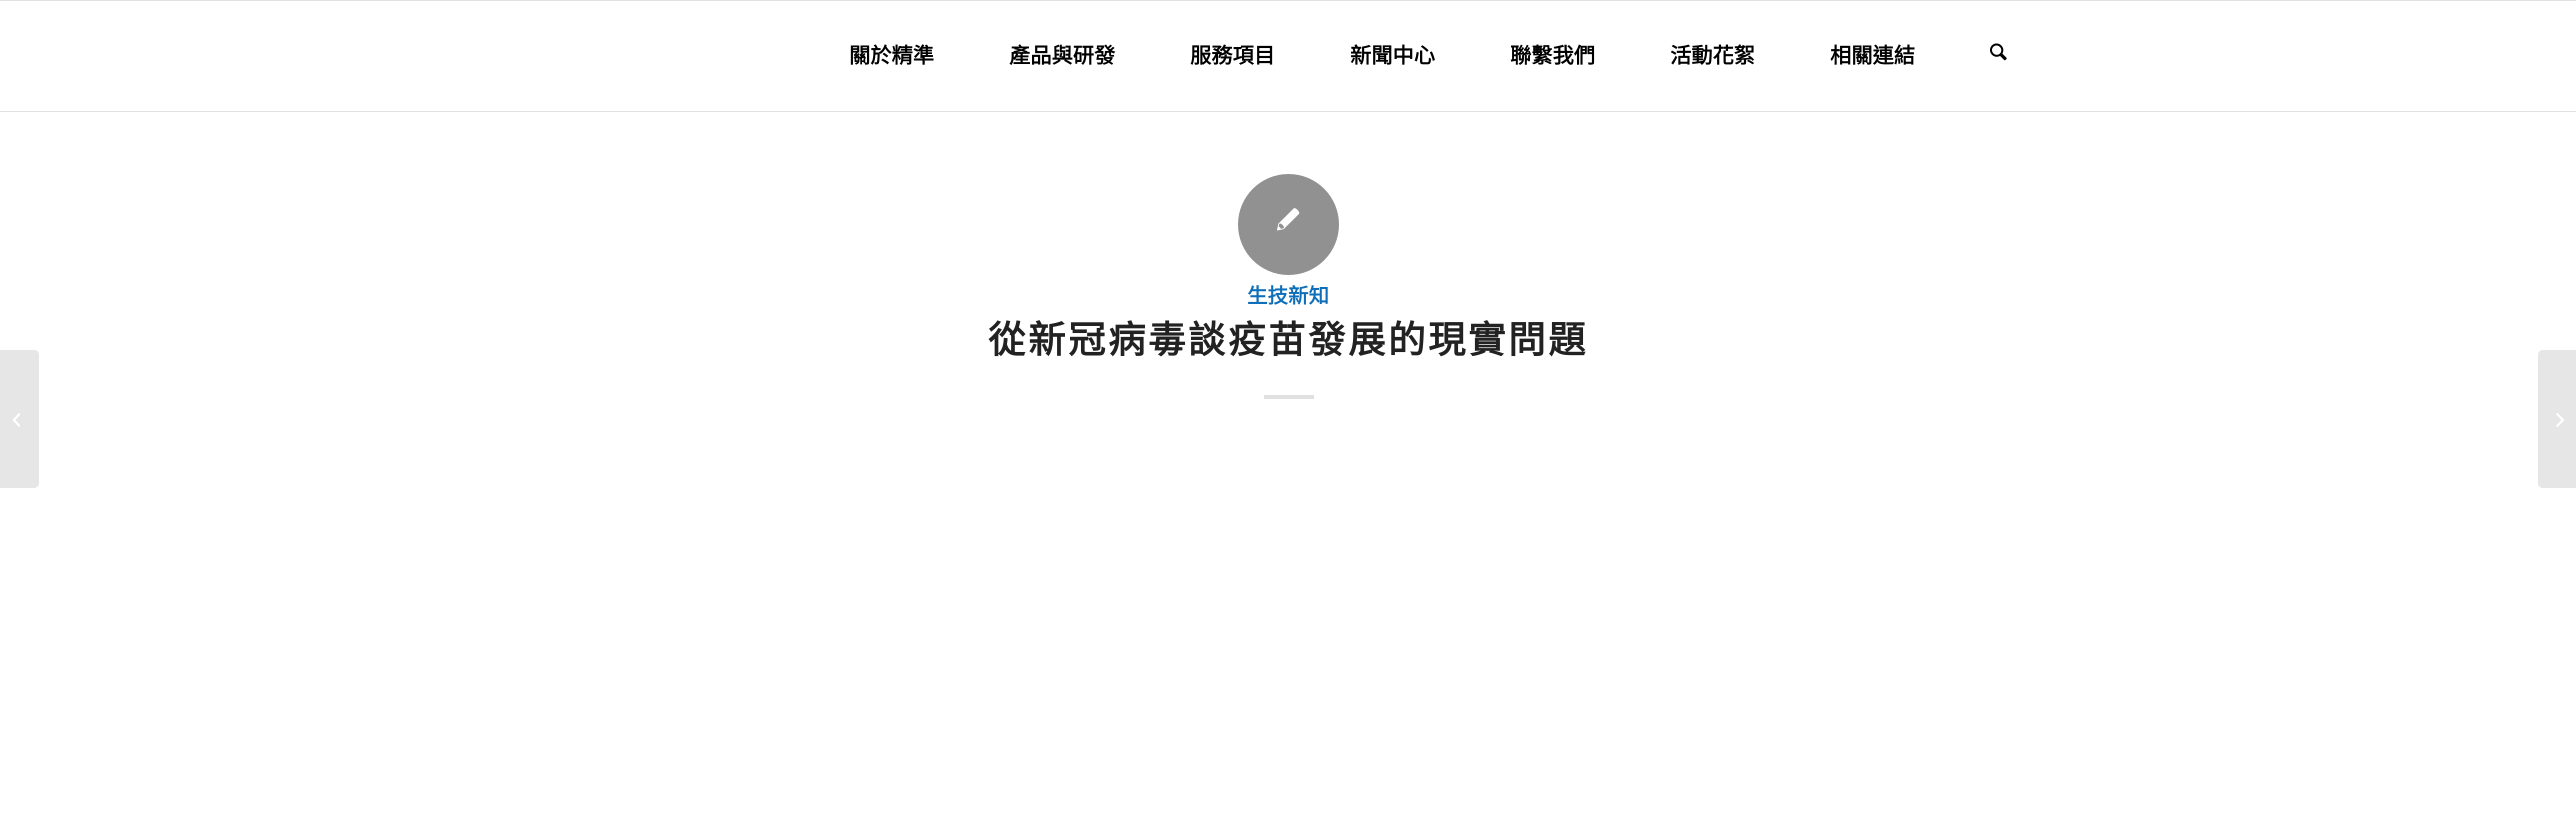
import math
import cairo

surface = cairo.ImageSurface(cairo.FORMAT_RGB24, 2576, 837)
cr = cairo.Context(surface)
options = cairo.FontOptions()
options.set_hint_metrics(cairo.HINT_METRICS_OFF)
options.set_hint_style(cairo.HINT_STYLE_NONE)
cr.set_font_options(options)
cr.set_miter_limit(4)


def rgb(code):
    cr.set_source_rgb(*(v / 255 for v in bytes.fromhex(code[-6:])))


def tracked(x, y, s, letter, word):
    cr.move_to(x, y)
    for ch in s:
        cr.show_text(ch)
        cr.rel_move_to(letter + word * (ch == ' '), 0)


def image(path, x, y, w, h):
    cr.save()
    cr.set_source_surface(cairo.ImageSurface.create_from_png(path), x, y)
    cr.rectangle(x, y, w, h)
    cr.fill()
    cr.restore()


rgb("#ffffff")
cr.paint()
rgb("#e1e1e1")
cr.rectangle(0, 0, 2576, 1)
cr.fill()
cr.rectangle(0, 111, 2576, 1)
cr.fill()
image("img/1.png", 1990, 43, 17, 18)
rgb("#919191")
cr.arc(1288.5, 224.5, 50.5, 0, 2 * math.pi)
cr.fill()
image("img/2.png", 1277, 208, 23, 23)
rgb("#e1e1e1")
cr.rectangle(1264, 395, 50, 4)
cr.fill()
rgb("#e6e6e6")
cr.new_path()
cr.move_to(0, 350)
cr.line_to(34, 350)
cr.curve_to(37, 350, 39, 352, 39, 355)
cr.line_to(39, 483)
cr.curve_to(39, 486, 37, 488, 34, 488)
cr.line_to(0, 488)
cr.close_path()
cr.fill()
image("img/3.png", 13, 413, 7, 14)
cr.new_path()
cr.move_to(2543, 350)
cr.line_to(2576, 350)
cr.line_to(2576, 488)
cr.line_to(2543, 488)
cr.curve_to(2540, 488, 2538, 486, 2538, 483)
cr.line_to(2538, 355)
cr.curve_to(2538, 352, 2540, 350, 2543, 350)
cr.close_path()
cr.fill()
image("img/4.png", 2556, 413, 8, 14)
cr.select_font_face("Noto Sans CJK TC", cairo.FONT_SLANT_NORMAL, cairo.FONT_WEIGHT_BOLD)
cr.set_font_size(21.25)
rgb("#000000")
for x, y, s in [
    (849, 63, "關於精準"),
    (1009, 63, "產品與研發"),
    (1190, 63, "服務項目"),
    (1350, 63, "新聞中心"),
    (1510, 63, "聯繫我們"),
    (1670, 63, "活動花絮"),
    (1830, 63, "相關連結"),
]:
    cr.move_to(x, y)
    cr.show_text(s)
cr.set_font_size(20.5)
rgb("#0e6eb8")
cr.move_to(1247, 303)
cr.show_text("生技新知")
cr.set_font_size(37.5)
rgb("#222222")
tracked(988, 353, "從新冠病毒談疫苗發展的現實問題", 2.5, 0)
surface.write_to_png("page.png")
